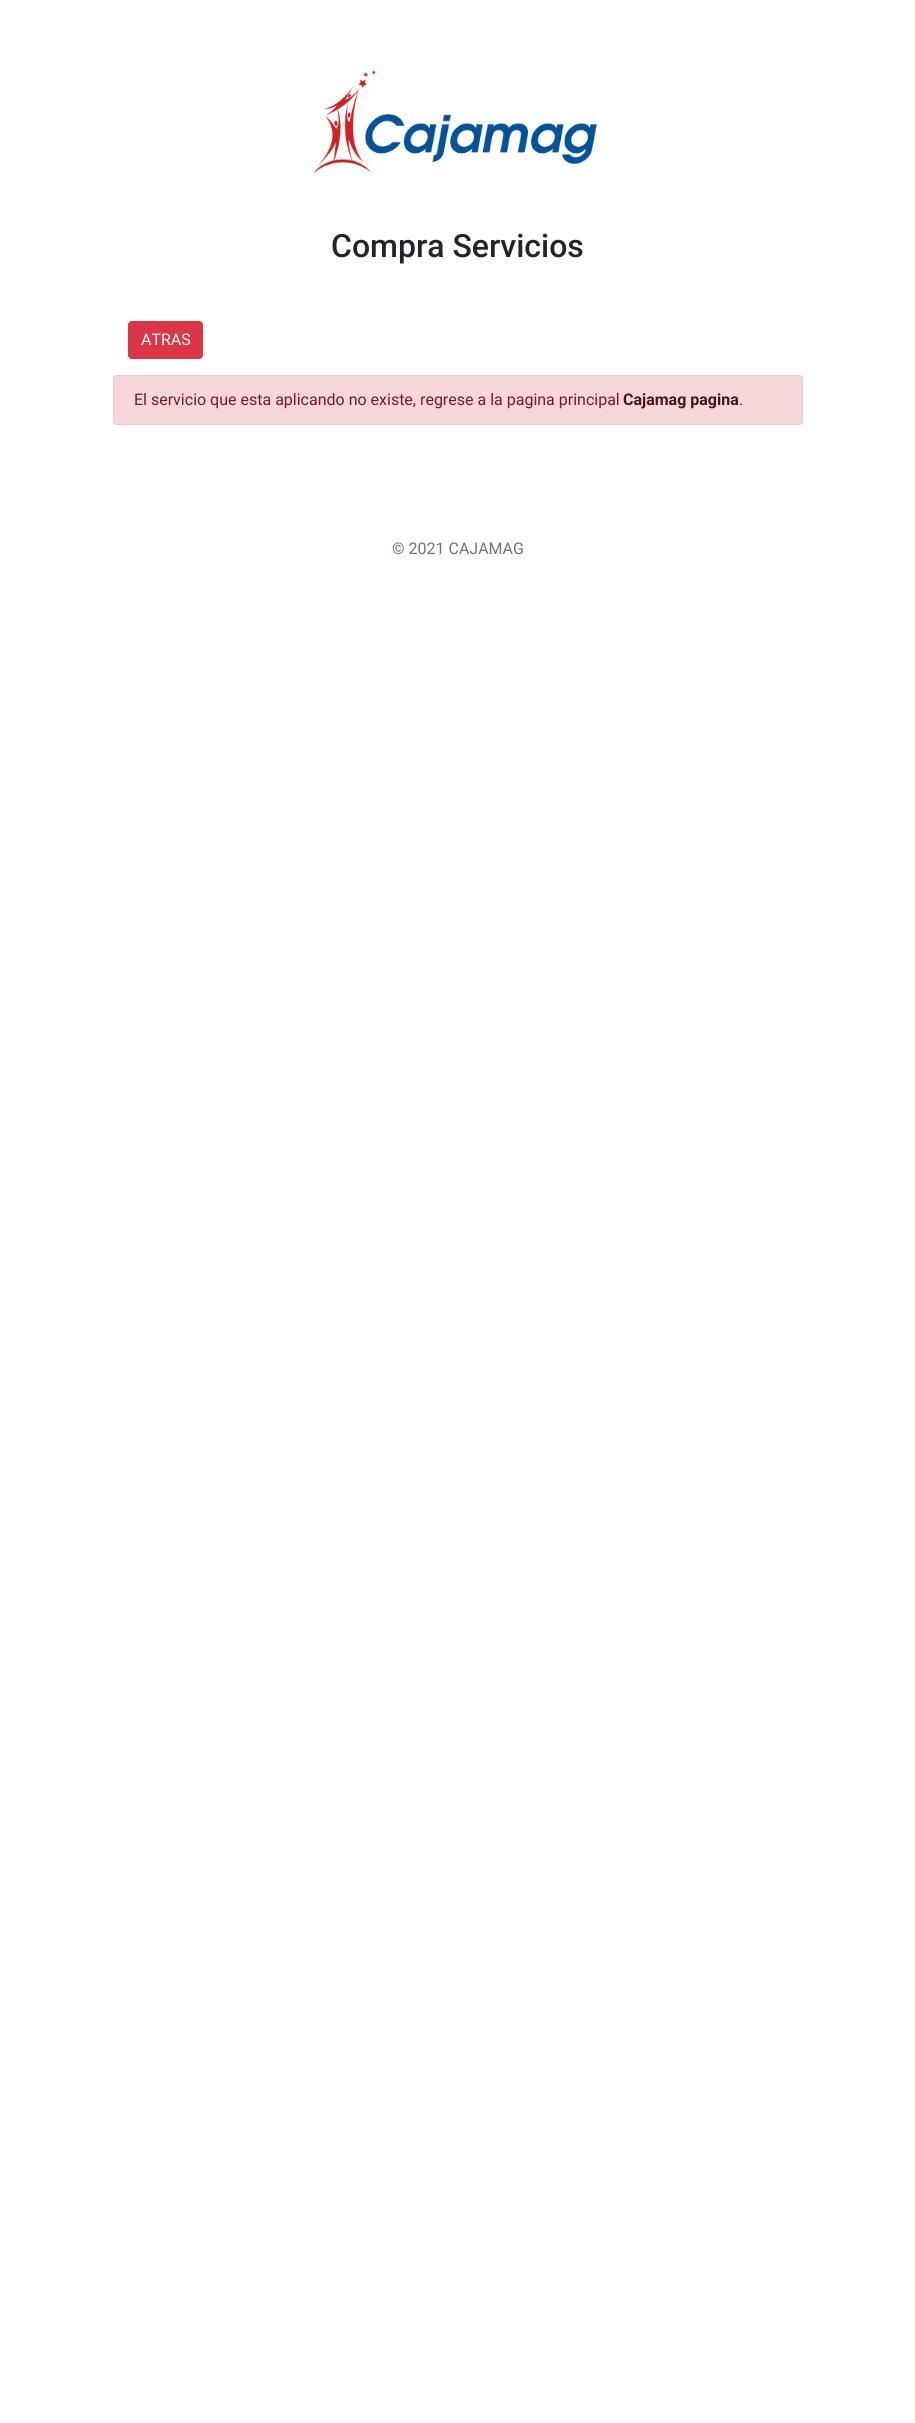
import math
import cairo

surface = cairo.ImageSurface(cairo.FORMAT_RGB24, 915, 2423)
cr = cairo.Context(surface)
options = cairo.FontOptions()
options.set_hint_metrics(cairo.HINT_METRICS_OFF)
options.set_hint_style(cairo.HINT_STYLE_NONE)
cr.set_font_options(options)
cr.set_miter_limit(4)


def rgb(code):
    cr.set_source_rgb(*(v / 255 for v in bytes.fromhex(code[-6:])))


def rrect(x, y, w, h, r):
    cr.new_sub_path()
    for i, (u, v) in enumerate([(x + w - r, y + h - r), (x + r, y + h - r), (x + r, y + r), (x + w - r, y + r)]):
        cr.arc(u, v, r, i * math.pi / 2, (i + 1) * math.pi / 2)
    cr.close_path()


def image(path, x, y, w, h):
    cr.save()
    cr.set_source_surface(cairo.ImageSurface.create_from_png(path), x, y)
    cr.rectangle(x, y, w, h)
    cr.fill()
    cr.restore()


rgb("#ffffff")
cr.paint()
image("img/1.png", 313, 70, 284, 104)
rgb("#dc3545")
rrect(128.5, 321.5, 74, 37, 3.5)
cr.fill_preserve()
cr.set_line_width(1)
cr.stroke()
rgb("#f8d7da")
rrect(113.5, 375.5, 689, 49, 3.5)
cr.fill_preserve()
rgb("#f5c6cb")
cr.stroke()
cr.select_font_face("Roboto Medium")
cr.set_font_size(32)
rgb("#212529")
cr.move_to(331, 257)
cr.show_text("Compra Servicios")
cr.select_font_face("Roboto")
cr.set_font_size(16)
rgb("#ffffff")
cr.move_to(141, 345)
cr.show_text("ATRAS")
rgb("#721c24")
cr.move_to(134, 405)
cr.show_text("El servicio que esta aplicando no existe, regrese a la pagina principal")
cr.select_font_face("Roboto", cairo.FONT_SLANT_NORMAL, cairo.FONT_WEIGHT_BOLD)
rgb("#491217")
cr.move_to(623, 405)
cr.show_text("Cajamag pagina")
cr.select_font_face("Roboto")
rgb("#721c24")
cr.move_to(739, 405)
cr.show_text(".")
rgb("#6c757d")
cr.move_to(392, 554)
cr.show_text("© 2021 CAJAMAG")
surface.write_to_png("page.png")
